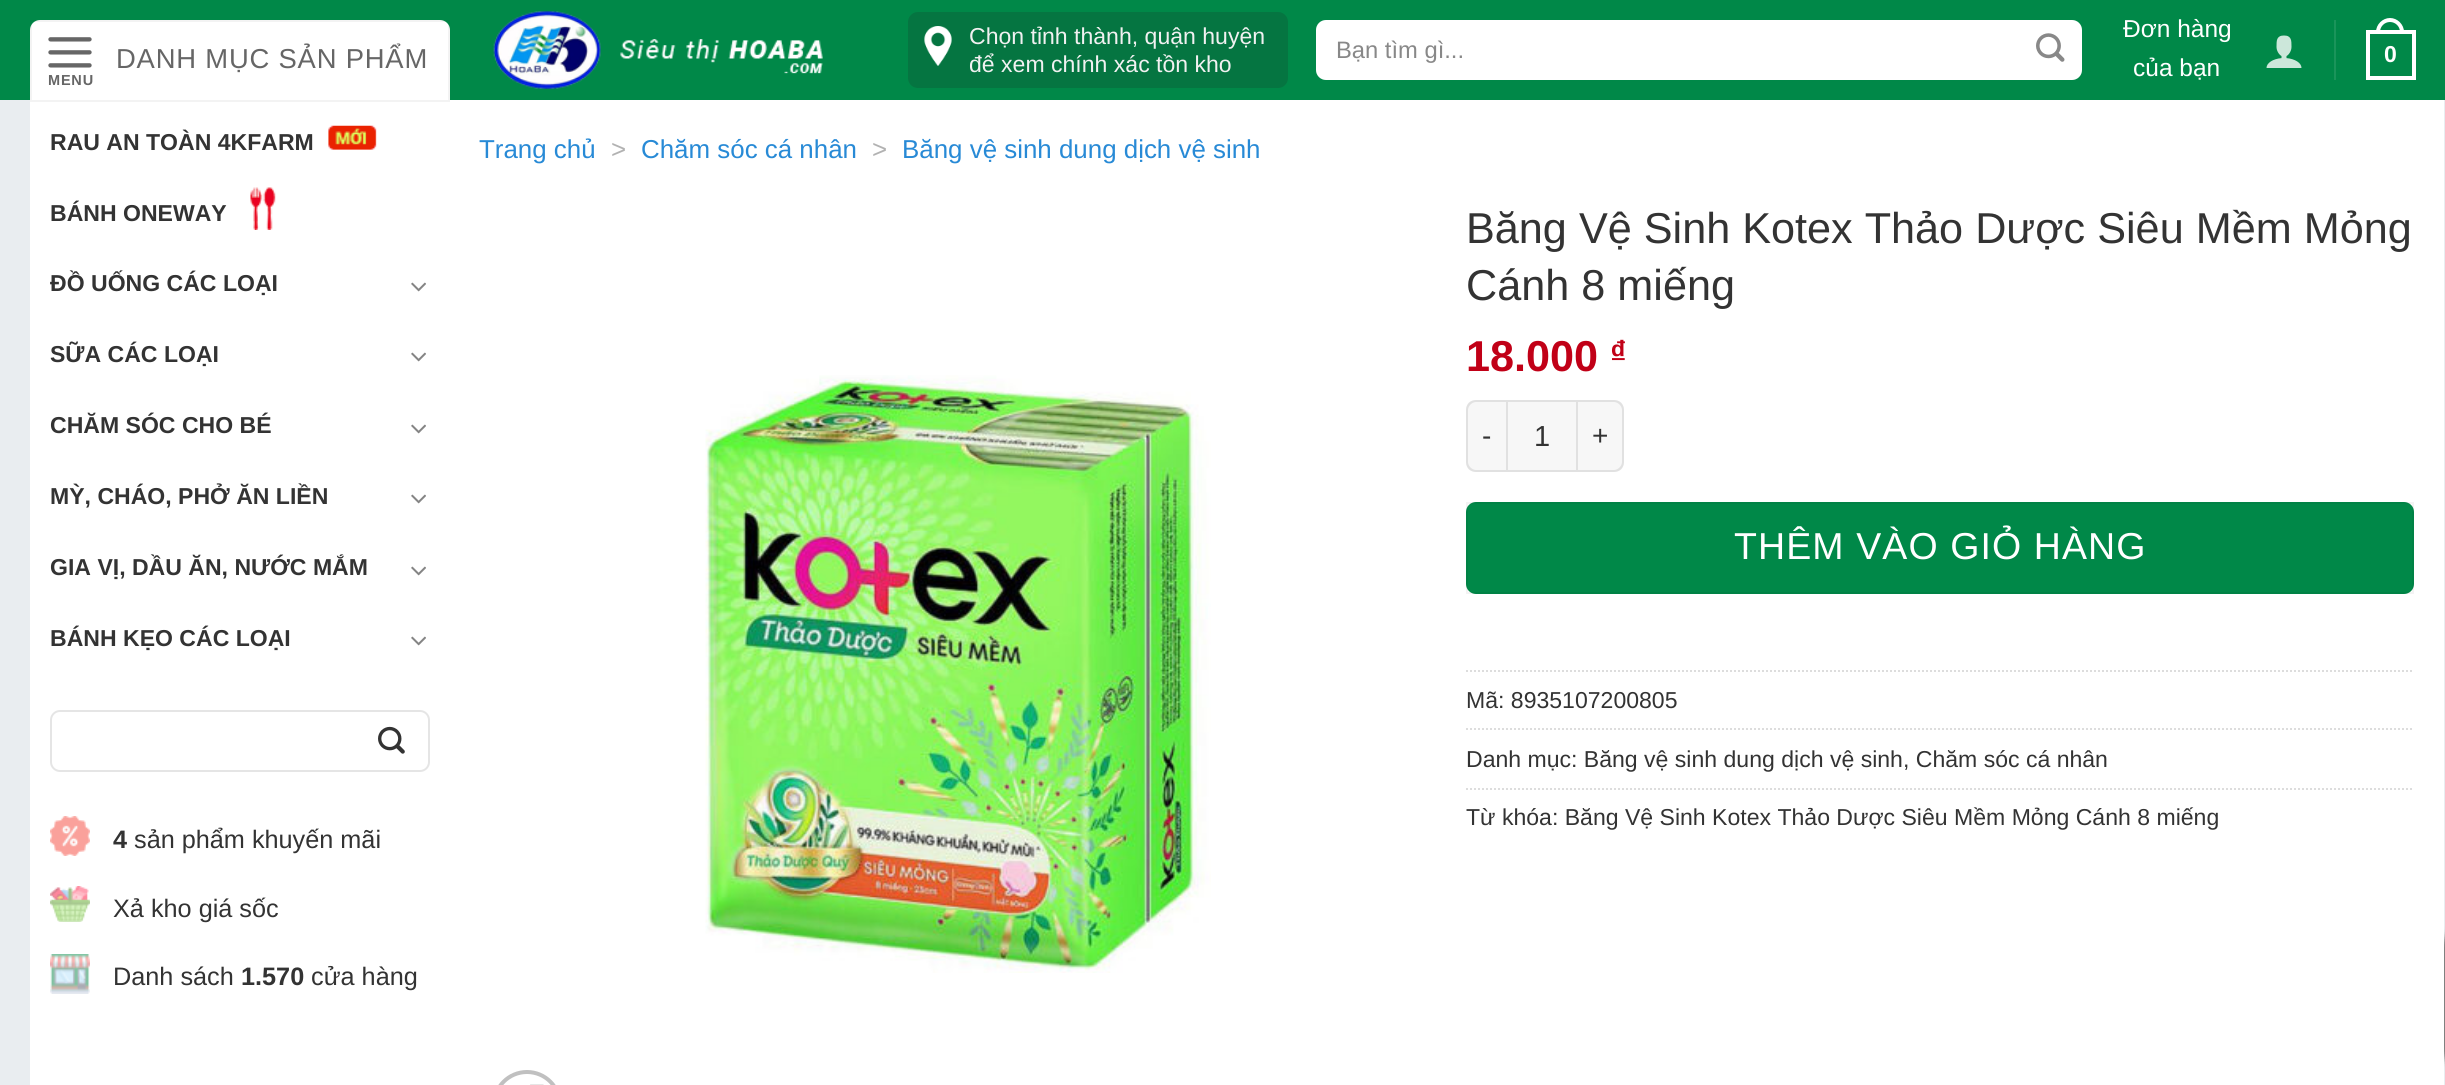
import math
import cairo

surface = cairo.ImageSurface(cairo.FORMAT_RGB24, 2445, 1085)
cr = cairo.Context(surface)
options = cairo.FontOptions()
options.set_hint_metrics(cairo.HINT_METRICS_OFF)
options.set_hint_style(cairo.HINT_STYLE_NONE)
cr.set_font_options(options)
cr.set_miter_limit(4)


def rgb(code):
    cr.set_source_rgb(*(v / 255 for v in bytes.fromhex(code[-6:])))


def tracked(x, y, s, letter, word):
    cr.move_to(x, y)
    for ch in s:
        cr.show_text(ch)
        cr.rel_move_to(letter + word * (ch == ' '), 0)


def rrect(x, y, w, h, r):
    cr.new_sub_path()
    for i, (u, v) in enumerate([(x + w - r, y + h - r), (x + r, y + h - r), (x + r, y + r), (x + w - r, y + r)]):
        cr.arc(u, v, r, i * math.pi / 2, (i + 1) * math.pi / 2)
    cr.close_path()


def soft_shadow(x, y, w, h, r, blur, alpha):
    cr.push_group_with_content(cairo.CONTENT_ALPHA)
    cr.set_operator(cairo.OPERATOR_SOURCE)
    for i in range(15, -16, -2):
        e = blur * i / 6
        if min(w, h) + 2 * e > 0:
            cr.set_source_rgba(0, 0, 0, alpha * math.erfc((i - 1) / 8.5) / 2)
            rrect(x - e, y - e, w + 2 * e, h + 2 * e, max(0, min(r + e + blur * .6, min(w, h) / 2 + e)))
            cr.fill()
    cr.mask(cr.pop_group())


def image(path, x, y, w, h):
    cr.save()
    cr.set_source_surface(cairo.ImageSurface.create_from_png(path), x, y)
    cr.rectangle(x, y, w, h)
    cr.fill()
    cr.restore()


rgb("#e9edf0")
cr.paint()
rgb("#008848")
cr.rectangle(0, 0, 2445, 100)
cr.fill()
rgb("#ffffff")
cr.new_path()
cr.move_to(40, 20)
cr.line_to(440, 20)
cr.curve_to(445.5, 20, 450, 24.5, 450, 30)
cr.line_to(450, 102)
cr.line_to(30, 102)
cr.line_to(30, 30)
cr.curve_to(30, 24.5, 34.5, 20, 40, 20)
cr.close_path()
cr.fill()
cr.rectangle(31, 21, 418, 80)
cr.set_source_rgba(0, 0, 0, 0.05)
cr.stroke()
image("img/1.png", 48, 37, 44, 31)
rgb("#ffffff")
cr.rectangle(30, 102, 420, 983)
cr.fill()
image("img/2.png", 328, 125, 49, 25)
image("img/3.png", 250, 187, 26, 43)
image("img/4.png", 411, 282, 15, 10)
image("img/4.png", 411, 352, 15, 10)
image("img/4.png", 411, 424, 15, 10)
image("img/4.png", 411, 494, 15, 10)
image("img/4.png", 411, 566, 15, 10)
image("img/4.png", 411, 636, 15, 10)
rrect(51, 711, 378, 60, 9)
rgb("#e5e5e5")
cr.stroke()
image("img/5.png", 378, 726, 27, 28)
image("img/6.png", 50, 816, 40, 40)
image("img/7.png", 50, 886, 40, 36)
image("img/8.png", 50, 954, 40, 40)
image("img/9.png", 493, 11, 330, 78)
rgb("#057541")
rrect(909, 13, 378, 74, 9)
cr.fill_preserve()
cr.stroke()
image("img/10.png", 924, 26, 28, 40)
rgb("#ffffff")
rrect(1316, 20, 766, 60, 10)
cr.fill()
rrect(1317, 21, 764, 58, 9)
cr.set_source_rgba(1, 1, 1, 0.09)
cr.stroke()
image("img/11.png", 2036, 33, 29, 29)
image("img/12.png", 2266, 35, 36, 33)
rgb("#1a945a")
cr.rectangle(2334, 20, 2, 60)
cr.fill()
cr.rectangle(2368, 32, 46, 46)
rgb("#ffffff")
cr.set_line_width(4)
cr.stroke()
cr.set_fill_rule(cairo.FILL_RULE_EVEN_ODD)
cr.new_path()
cr.move_to(2390, 18)
cr.curve_to(2397.5, 18, 2404, 24.5, 2404, 32)
cr.line_to(2404, 34)
cr.line_to(2376, 34)
cr.line_to(2376, 32)
cr.curve_to(2376, 24.5, 2382.5, 18, 2390, 18)
cr.close_path()
cr.move_to(2390, 22)
cr.curve_to(2395.5, 22, 2400, 26.5, 2400, 32)
cr.line_to(2400, 34)
cr.line_to(2380, 34)
cr.line_to(2380, 32)
cr.curve_to(2380, 26.5, 2384.5, 22, 2390, 22)
cr.close_path()
cr.fill()
rgb("#808080")
soft_shadow(2306, 938, 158, 120, 4, 5, 1)
rgb("#ffffff")
cr.rectangle(450, 100, 1994, 985)
cr.fill()
image("img/13.png", 705, 375, 506, 598)
rrect(494, 1072, 66, 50, 33)
rgb("#c0c0c0")
cr.stroke()
image("img/14.png", 530, 1084, 14, 1)
rgb("#f7f7f7")
cr.new_path()
cr.move_to(1476, 400)
cr.line_to(1506, 400)
cr.line_to(1506, 472)
cr.line_to(1476, 472)
cr.curve_to(1470.5, 472, 1466, 467.5, 1466, 462)
cr.line_to(1466, 410)
cr.curve_to(1466, 404.5, 1470.5, 400, 1476, 400)
cr.close_path()
cr.fill()
cr.set_source_rgba(0, 0, 0, 0.09)
cr.new_path()
cr.move_to(1476, 400)
cr.line_to(1506, 400)
cr.line_to(1506, 472)
cr.line_to(1476, 472)
cr.curve_to(1470, 472, 1466, 468, 1466, 462)
cr.line_to(1466, 410)
cr.curve_to(1466, 404, 1470, 400, 1476, 400)
cr.close_path()
cr.move_to(1476, 402)
cr.line_to(1506, 402)
cr.line_to(1506, 470)
cr.line_to(1476, 470)
cr.curve_to(1472, 470, 1468, 466, 1468, 462)
cr.line_to(1468, 410)
cr.curve_to(1468, 406, 1472, 402, 1476, 402)
cr.close_path()
cr.fill()
rgb("#f7f7f7")
cr.rectangle(1507, 401, 70, 70)
cr.fill_preserve()
rgb("#e1e1e1")
cr.set_line_width(2)
cr.stroke()
rgb("#f7f7f7")
cr.new_path()
cr.move_to(1578, 400)
cr.line_to(1614, 400)
cr.curve_to(1619.5, 400, 1624, 404.5, 1624, 410)
cr.line_to(1624, 462)
cr.curve_to(1624, 467.5, 1619.5, 472, 1614, 472)
cr.line_to(1578, 472)
cr.close_path()
cr.fill()
cr.set_source_rgba(0, 0, 0, 0.09)
cr.new_path()
cr.move_to(1578, 400)
cr.line_to(1614, 400)
cr.curve_to(1620, 400, 1624, 404, 1624, 410)
cr.line_to(1624, 462)
cr.curve_to(1624, 468, 1620, 472, 1614, 472)
cr.line_to(1578, 472)
cr.close_path()
cr.move_to(1578, 402)
cr.line_to(1614, 402)
cr.curve_to(1618, 402, 1622, 406, 1622, 410)
cr.line_to(1622, 462)
cr.curve_to(1622, 466, 1618, 470, 1614, 470)
cr.line_to(1578, 470)
cr.close_path()
cr.fill()
rgb("#008848")
rrect(1466, 502, 948, 92, 10)
cr.fill()
cr.rectangle(1467, 503, 946, 90)
cr.set_source_rgba(0, 0, 0, 0.05)
cr.stroke()
cr.new_path()
cr.move_to(1466, 671)
cr.line_to(2414, 671)
rgb("#dddddd")
cr.set_dash([2, 2])
cr.stroke()
cr.new_path()
cr.move_to(1466, 729)
cr.line_to(2414, 729)
cr.stroke()
cr.new_path()
cr.move_to(1466, 789)
cr.line_to(2414, 789)
cr.stroke()
cr.select_font_face("Liberation Sans")
cr.set_font_size(27.4)
rgb("#666666")
tracked(116, 68, "DANH MỤC SẢN PHẨM", 0.8, 0)
cr.select_font_face("Liberation Sans", cairo.FONT_SLANT_NORMAL, cairo.FONT_WEIGHT_BOLD)
cr.set_font_size(14.5)
tracked(48, 85, "MENU", 0.8, 0)
cr.set_font_size(23.05)
rgb("#333333")
for x, y, s in [
    (50, 150, "RAU AN TOÀN 4KFARM"),
    (50, 221, "BÁNH ONEWAY"),
    (50, 291, "ĐỒ UỐNG CÁC LOẠI"),
    (50, 362, "SỮA CÁC LOẠI"),
    (50, 433, "CHĂM SÓC CHO BÉ"),
    (50, 504, "MỲ, CHÁO, PHỞ ĂN LIỀN"),
    (50, 575, "GIA VỊ, DẦU ĂN, NƯỚC MẮM"),
    (50, 646, "BÁNH KẸO CÁC LOẠI"),
]:
    cr.move_to(x, y)
    cr.show_text(s)
cr.set_font_size(25.25)
cr.move_to(113, 848)
cr.show_text("4")
cr.select_font_face("Liberation Sans")
for x, y, s in [
    (134, 848, "sản phẩm khuyến mãi"),
    (113, 917, "Xả kho giá sốc"),
    (113, 985, "Danh sách"),
]:
    cr.move_to(x, y)
    cr.show_text(s)
cr.select_font_face("Liberation Sans", cairo.FONT_SLANT_NORMAL, cairo.FONT_WEIGHT_BOLD)
cr.move_to(241, 985)
cr.show_text("1.570")
cr.select_font_face("Liberation Sans")
cr.move_to(311, 985)
cr.show_text("cửa hàng")
cr.set_font_size(23.05)
rgb("#f1f1f1")
cr.move_to(969, 44)
cr.show_text("Chọn tỉnh thành, quận huyện")
cr.move_to(969, 72)
cr.show_text("để xem chính xác tồn kho")
cr.set_font_size(23.75)
rgb("#888888")
cr.move_to(1336, 58)
cr.show_text("Bạn tìm gì...")
cr.set_font_size(24.5)
rgb("#ffffff")
cr.move_to(2123, 37)
cr.show_text("Đơn hàng")
cr.move_to(2133, 76)
cr.show_text("của bạn")
cr.select_font_face("Liberation Sans", cairo.FONT_SLANT_NORMAL, cairo.FONT_WEIGHT_BOLD)
cr.set_font_size(23.05)
cr.move_to(2384, 62)
cr.show_text("0")
cr.select_font_face("Liberation Sans")
cr.set_font_size(25.9)
rgb("#288ad6")
cr.move_to(479, 158)
cr.show_text("Trang chủ")
rgb("#b2b2b2")
cr.move_to(611, 158)
cr.show_text(">")
rgb("#288ad6")
cr.move_to(641, 158)
cr.show_text("Chăm sóc cá nhân")
rgb("#b2b2b2")
cr.move_to(872, 158)
cr.show_text(">")
rgb("#288ad6")
cr.move_to(902, 158)
cr.show_text("Băng vệ sinh dung dịch vệ sinh")
cr.set_font_size(43.2)
rgb("#333333")
cr.move_to(1466, 243)
cr.show_text("Băng Vệ Sinh Kotex Thảo Dược Siêu Mềm Mỏng")
cr.move_to(1466, 300)
cr.show_text("Cánh 8 miếng")
cr.select_font_face("Liberation Sans", cairo.FONT_SLANT_NORMAL, cairo.FONT_WEIGHT_BOLD)
rgb("#c10017")
cr.move_to(1466, 371)
cr.show_text("18.000")
cr.set_font_size(32)
cr.move_to(1610, 363)
cr.show_text("₫")
cr.select_font_face("Liberation Sans")
cr.set_font_size(28)
rgb("#333333")
tracked(1482, 445, "-", 1, 0)
cr.set_font_size(29)
cr.move_to(1534, 446)
cr.show_text("1")
cr.set_font_size(28)
tracked(1592, 445, "+", 1, 0)
cr.set_font_size(37.5)
rgb("#ffffff")
tracked(1734, 559, "THÊM VÀO GIỎ HÀNG", 1.1, 0)
cr.set_font_size(23.05)
rgb("#333333")
for x, y, s in [
    (1466, 708, "Mã: 8935107200805"),
    (1466, 767, "Danh mục: Băng vệ sinh dung dịch vệ sinh, Chăm sóc cá nhân"),
    (1466, 825, "Từ khóa: Băng Vệ Sinh Kotex Thảo Dược Siêu Mềm Mỏng Cánh 8 miếng"),
]:
    cr.move_to(x, y)
    cr.show_text(s)
surface.write_to_png("page.png")
